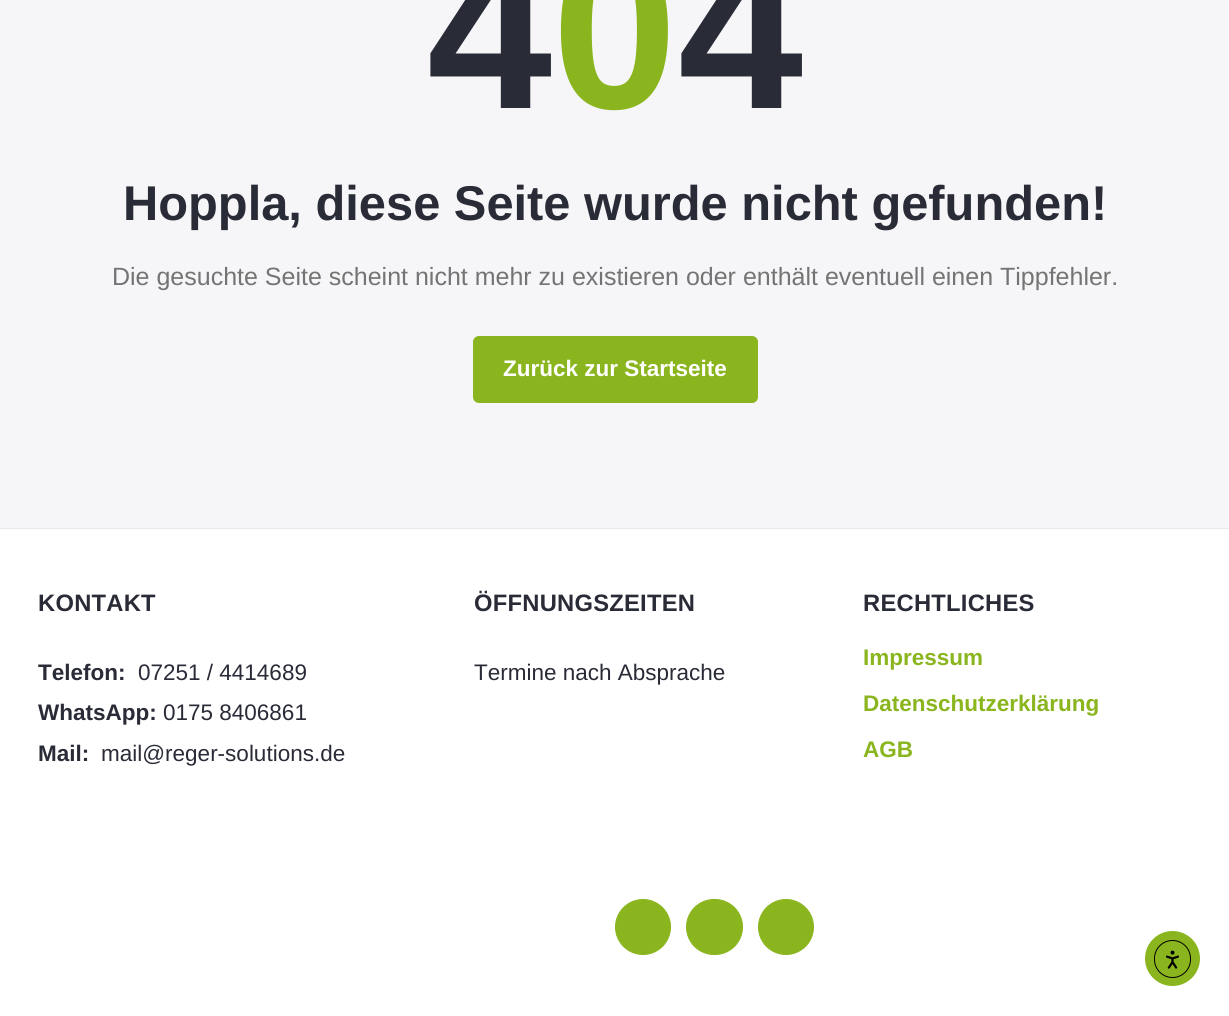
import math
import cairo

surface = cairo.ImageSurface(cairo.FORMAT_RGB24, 1229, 1016)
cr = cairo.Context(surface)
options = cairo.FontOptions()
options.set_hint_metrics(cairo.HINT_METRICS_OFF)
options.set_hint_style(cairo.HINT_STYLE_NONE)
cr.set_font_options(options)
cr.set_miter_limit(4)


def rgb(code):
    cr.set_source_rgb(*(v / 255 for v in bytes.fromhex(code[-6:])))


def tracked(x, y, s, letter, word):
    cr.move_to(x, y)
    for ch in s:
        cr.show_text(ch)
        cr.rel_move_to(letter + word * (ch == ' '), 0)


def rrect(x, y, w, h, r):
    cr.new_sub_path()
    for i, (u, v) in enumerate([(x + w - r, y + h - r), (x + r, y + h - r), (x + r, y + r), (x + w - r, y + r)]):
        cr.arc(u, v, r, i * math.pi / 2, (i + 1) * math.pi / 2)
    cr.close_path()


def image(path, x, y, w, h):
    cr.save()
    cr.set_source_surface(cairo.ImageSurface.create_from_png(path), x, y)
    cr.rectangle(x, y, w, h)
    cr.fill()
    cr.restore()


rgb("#ffffff")
cr.paint()
rgb("#f6f6f8")
cr.rectangle(0, 0, 1229, 528)
cr.fill()
rgb("#8ab51e")
rrect(473, 336, 285, 67, 6)
cr.fill()
rgb("#e8e8ed")
cr.rectangle(0, 528, 1229, 1)
cr.fill()
rgb("#8ab51e")
cr.arc(643, 927, 27.5, 0, 2 * math.pi)
cr.fill_preserve()
cr.set_line_width(1)
cr.stroke()
rrect(686.5, 899.5, 56, 55, 27.5)
cr.fill_preserve()
cr.stroke()
cr.arc(786, 927, 27.5, 0, 2 * math.pi)
cr.fill_preserve()
cr.stroke()
cr.arc(1172.5, 958.5, 27.5, 0, 2 * math.pi)
cr.fill()
rrect(1154.5, 940.5, 36, 37, 18)
rgb("#000000")
cr.stroke()
image("img/1.png", 1165, 950, 14, 19)
cr.select_font_face("Liberation Sans", cairo.FONT_SLANT_NORMAL, cairo.FONT_WEIGHT_BOLD)
cr.set_font_size(225)
rgb("#292b37")
cr.move_to(427, 108)
cr.show_text("4")
rgb("#8ab51e")
cr.move_to(552, 108)
cr.show_text("0")
rgb("#292b37")
cr.move_to(678, 108)
cr.show_text("4")
cr.set_font_size(48.8)
cr.move_to(123, 220)
cr.show_text("Hoppla, diese Seite wurde nicht gefunden!")
cr.select_font_face("Liberation Sans")
cr.set_font_size(25)
rgb("#747474")
cr.move_to(112, 285)
cr.show_text("Die gesuchte Seite scheint nicht mehr zu existieren oder enthält eventuell einen Tippfehler.")
cr.select_font_face("Liberation Sans", cairo.FONT_SLANT_NORMAL, cairo.FONT_WEIGHT_BOLD)
cr.set_font_size(22.5)
rgb("#ffffff")
cr.move_to(503, 376)
cr.show_text("Zurück zur Startseite")
cr.set_font_size(23.75)
rgb("#292b37")
tracked(38, 611, "KONTAKT", 0.25, 0)
cr.set_font_size(22.5)
cr.move_to(38, 680)
cr.show_text("Telefon:")
cr.select_font_face("Liberation Sans")
cr.move_to(138, 680)
cr.show_text("07251 / 4414689")
cr.select_font_face("Liberation Sans", cairo.FONT_SLANT_NORMAL, cairo.FONT_WEIGHT_BOLD)
cr.move_to(38, 720)
cr.show_text("WhatsApp:")
cr.select_font_face("Liberation Sans")
cr.move_to(163, 720)
cr.show_text("0175 8406861")
cr.select_font_face("Liberation Sans", cairo.FONT_SLANT_NORMAL, cairo.FONT_WEIGHT_BOLD)
cr.move_to(38, 761)
cr.show_text("Mail:")
cr.select_font_face("Liberation Sans")
cr.move_to(101, 761)
cr.show_text("mail@reger-solutions.de")
cr.select_font_face("Liberation Sans", cairo.FONT_SLANT_NORMAL, cairo.FONT_WEIGHT_BOLD)
cr.set_font_size(23.75)
tracked(474, 611, "ÖFFNUNGSZEITEN", 0.25, 0)
cr.select_font_face("Liberation Sans")
cr.set_font_size(22.5)
cr.move_to(474, 680)
cr.show_text("Termine nach Absprache")
cr.select_font_face("Liberation Sans", cairo.FONT_SLANT_NORMAL, cairo.FONT_WEIGHT_BOLD)
cr.set_font_size(23.75)
tracked(863, 611, "RECHTLICHES", 0.25, 0)
cr.set_font_size(22.5)
rgb("#8ab51e")
for x, y, s in [
    (863, 665, "Impressum"),
    (863, 711, "Datenschutzerklärung"),
    (863, 757, "AGB"),
]:
    cr.move_to(x, y)
    cr.show_text(s)
surface.write_to_png("page.png")
